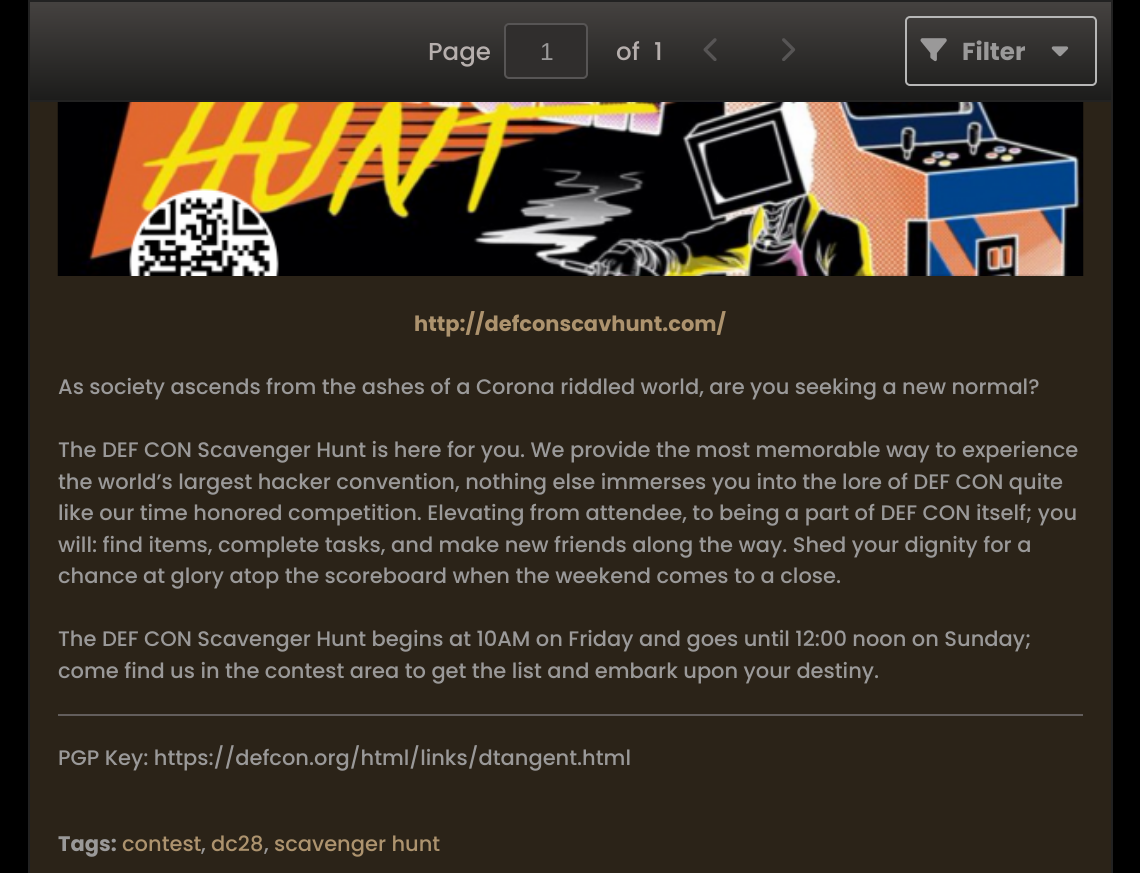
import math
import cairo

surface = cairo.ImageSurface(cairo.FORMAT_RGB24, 1140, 873)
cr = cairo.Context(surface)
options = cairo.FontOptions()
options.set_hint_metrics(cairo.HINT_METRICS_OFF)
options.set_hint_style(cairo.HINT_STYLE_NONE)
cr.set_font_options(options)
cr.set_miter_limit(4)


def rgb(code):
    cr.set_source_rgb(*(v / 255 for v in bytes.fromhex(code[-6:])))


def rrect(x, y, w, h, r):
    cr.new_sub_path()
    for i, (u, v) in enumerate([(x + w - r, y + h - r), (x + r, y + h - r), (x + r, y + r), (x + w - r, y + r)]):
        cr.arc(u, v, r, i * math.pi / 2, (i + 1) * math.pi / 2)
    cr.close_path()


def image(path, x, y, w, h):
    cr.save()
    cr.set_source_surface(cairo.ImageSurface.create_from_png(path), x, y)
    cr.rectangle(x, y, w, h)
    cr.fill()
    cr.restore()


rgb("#000000")
cr.paint()
cr.rectangle(29, -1, 1083, 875)
rgb("#222222")
cr.stroke()
gradient = cairo.LinearGradient(571, 1.7, 571, 100)
gradient.add_color_stop_rgba(0, 0.271, 0.259, 0.251, 1)
gradient.add_color_stop_rgba(1, 0.11, 0.11, 0.106, 1)
cr.set_source(gradient)
cr.rectangle(30, 2, 1081, 98)
cr.fill()
cr.rectangle(29, 1, 1083, 100)
rgb("#222222")
cr.stroke()
rgb("#302e2d")
rrect(505, 24, 82, 54, 4)
cr.fill_preserve()
rgb("#575555")
cr.stroke()
image("img/1.png", 703, 38, 14, 23)
image("img/2.png", 782, 38, 14, 23)
rrect(906, 17, 190, 68, 4)
rgb("#b7b7b7")
cr.stroke()
image("img/3.png", 920, 38, 27, 24)
image("img/4.png", 1051, 46, 18, 11)
rgb("#2b2318")
cr.rectangle(30, 102, 1081, 771)
cr.fill()
image("img/5.png", 57, 102, 1027, 174)
rgb("#635e5c")
cr.rectangle(58, 714, 1025, 2)
cr.fill()
cr.select_font_face("Poppins Medium")
cr.set_font_size(24.5)
rgb("#b6afad")
cr.move_to(428, 60)
cr.show_text("Page")
cr.select_font_face("Liberation Sans")
rgb("#9a9999")
cr.move_to(540, 60)
cr.show_text("1")
cr.select_font_face("Poppins Medium")
rgb("#b6afad")
cr.move_to(616, 60)
cr.show_text("of")
cr.move_to(654, 60)
cr.show_text("1")
cr.select_font_face("Poppins", cairo.FONT_SLANT_NORMAL, cairo.FONT_WEIGHT_BOLD)
rgb("#9a9999")
cr.move_to(962, 60)
cr.show_text("Filter")
cr.set_font_size(21)
rgb("#ad936e")
cr.move_to(414, 331)
cr.show_text("http://defconscavhunt.com/")
cr.select_font_face("Poppins Medium")
rgb("#9a9999")
for x, y, s in [
    (58, 394, "As society ascends from the ashes of a Corona riddled world, are you seeking a new normal?"),
    (58, 457, "The DEF CON Scavenger Hunt is here for you. We provide the most memorable way to experience"),
    (58, 489, "the world’s largest hacker convention, nothing else immerses you into the lore of DEF CON quite"),
    (58, 520, "like our time honored competition. Elevating from attendee, to being a part of DEF CON itself; you"),
    (58, 552, "will: find items, complete tasks, and make new friends along the way. Shed your dignity for a"),
    (58, 583, "chance at glory atop the scoreboard when the weekend comes to a close."),
    (58, 646, "The DEF CON Scavenger Hunt begins at 10AM on Friday and goes until 12:00 noon on Sunday;"),
    (58, 678, "come find us in the contest area to get the list and embark upon your destiny."),
    (58, 765, "PGP Key: https://defcon.org/html/links/dtangent.html"),
]:
    cr.move_to(x, y)
    cr.show_text(s)
cr.select_font_face("Poppins", cairo.FONT_SLANT_NORMAL, cairo.FONT_WEIGHT_BOLD)
cr.move_to(58, 851)
cr.show_text("Tags:")
cr.select_font_face("Poppins Medium")
rgb("#ad936e")
cr.move_to(122, 851)
cr.show_text("contest")
rgb("#9a9999")
cr.move_to(201, 851)
cr.show_text(",")
rgb("#ad936e")
cr.move_to(211, 851)
cr.show_text("dc28")
rgb("#9a9999")
cr.move_to(264, 851)
cr.show_text(",")
rgb("#ad936e")
cr.move_to(274, 851)
cr.show_text("scavenger hunt")
surface.write_to_png("page.png")
